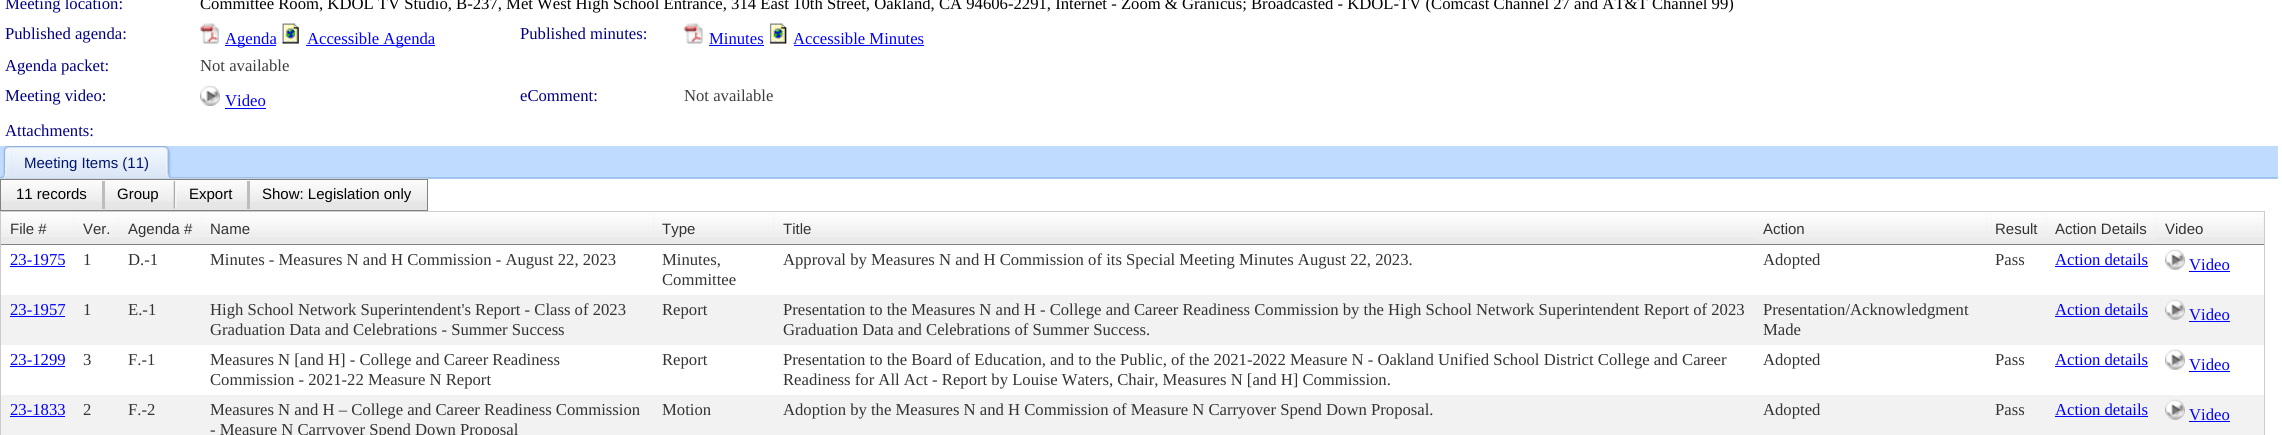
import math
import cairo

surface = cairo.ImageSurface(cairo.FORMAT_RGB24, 2282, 435)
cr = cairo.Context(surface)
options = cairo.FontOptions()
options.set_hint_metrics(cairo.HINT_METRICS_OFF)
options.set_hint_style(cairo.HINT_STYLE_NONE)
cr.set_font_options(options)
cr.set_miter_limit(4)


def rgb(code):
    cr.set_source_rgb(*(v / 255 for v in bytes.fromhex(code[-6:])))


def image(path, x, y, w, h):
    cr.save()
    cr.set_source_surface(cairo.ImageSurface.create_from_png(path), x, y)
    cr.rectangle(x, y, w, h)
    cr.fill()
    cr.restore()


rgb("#ffffff")
cr.paint()
image("img/1.png", 200, 23, 19, 21)
rgb("#0000ff")
cr.rectangle(225, 45, 51, 1)
cr.fill()
image("img/2.png", 282, 23, 17, 21)
cr.rectangle(306, 45, 129, 1)
cr.fill()
image("img/3.png", 683, 23, 20, 21)
cr.rectangle(709, 45, 55, 1)
cr.fill()
image("img/4.png", 769, 23, 18, 21)
cr.rectangle(794, 45, 130, 1)
cr.fill()
image("img/5.png", 200, 86, 20, 20)
cr.rectangle(225, 108, 41, 1)
cr.fill()
rgb("#bfdbff")
cr.rectangle(0, 146, 2278, 33)
cr.fill()
image("img/6.png", 0, 177, 2278, 2)
image("img/7.png", 1, 146, 11, 33)
image("img/8.png", 11, 146, 161, 33)
rgb("#e6e6e6")
cr.rectangle(1, 202, 426, 8)
cr.fill()
image("img/9.png", 0, 178, 428, 24)
cr.rectangle(0.5, 179.5, 427, 31)
rgb("#828282")
cr.set_line_width(1)
cr.stroke()
rgb("#bdbdbd")
cr.rectangle(102, 181, 3, 28)
cr.fill()
image("img/10.png", 173, 180, 4, 29)
cr.rectangle(247, 181, 3, 28)
cr.fill()
cr.rectangle(0.5, 211.5, 2264, 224)
rgb("#cccccc")
cr.stroke()
rgb("#eaeaea")
cr.rectangle(1, 213, 118, 31)
cr.fill()
image("img/11.png", 1, 213, 73, 24)
rgb("#828282")
cr.rectangle(1, 244, 2263, 1)
cr.fill()
image("img/12.png", 74, 213, 45, 24)
rgb("#eaeaea")
cr.rectangle(119, 243, 82, 1)
cr.fill()
image("img/13.png", 119, 213, 82, 30)
cr.rectangle(201, 213, 573, 31)
cr.fill()
image("img/14.png", 201, 213, 453, 24)
image("img/15.png", 654, 213, 120, 24)
cr.rectangle(774, 237, 981, 7)
cr.fill()
image("img/16.png", 774, 213, 981, 24)
cr.rectangle(1755, 243, 231, 1)
cr.fill()
image("img/17.png", 1755, 213, 231, 30)
cr.rectangle(1986, 213, 278, 31)
cr.fill()
image("img/18.png", 1986, 213, 60, 30)
image("img/19.png", 2046, 213, 110, 30)
image("img/20.png", 2156, 213, 108, 24)
rgb("#0000ff")
cr.rectangle(10, 266, 55, 1)
cr.fill()
cr.rectangle(2055, 266, 93, 1)
cr.fill()
image("img/21.png", 2165, 249, 20, 21)
for x, y, w, h, color in [
    (2189, 271, 41, 1, "#0000ff"),
    (1, 295, 2263, 50, "#f2f2f2"),
    (10, 316, 55, 1, "#0000ff"),
    (2055, 316, 93, 1, "#0000ff"),
]:
    rgb(color)
    cr.rectangle(x, y, w, h)
    cr.fill()
image("img/22.png", 2165, 299, 20, 21)
for x, y, w, h, color in [
    (2189, 321, 41, 1, "#0000ff"),
    (10, 366, 55, 1, "#0000ff"),
    (2055, 366, 93, 1, "#0000ff"),
]:
    rgb(color)
    cr.rectangle(x, y, w, h)
    cr.fill()
image("img/21.png", 2165, 349, 20, 21)
for x, y, w, h, color in [
    (2189, 371, 41, 1, "#0000ff"),
    (1, 395, 2263, 40, "#f2f2f2"),
    (10, 416, 55, 1, "#0000ff"),
    (2055, 416, 93, 1, "#0000ff"),
]:
    rgb(color)
    cr.rectangle(x, y, w, h)
    cr.fill()
image("img/22.png", 2165, 399, 20, 21)
cr.rectangle(2189, 421, 41, 1)
cr.fill()
cr.select_font_face("Liberation Serif")
cr.set_font_size(16.67)
rgb("#000080")
cr.move_to(5, 9)
cr.show_text("Meeting location:")
rgb("#000000")
cr.move_to(200, 9)
cr.show_text("Committee Room, KDOL TV Studio, B-237, Met West High School Entrance, 314 East 10th Street, Oakland, CA 94606-2291, Internet - Zoom & Granicus; Broadcasted - KDOL-TV (Comcast Channel 27 and AT&T Channel 99)")
rgb("#000080")
cr.move_to(5, 39)
cr.show_text("Published agenda:")
rgb("#0000ff")
cr.move_to(225, 44)
cr.show_text("Agenda")
cr.move_to(307, 44)
cr.show_text("Accessible Agenda")
rgb("#000080")
cr.move_to(520, 39)
cr.show_text("Published minutes:")
rgb("#0000ff")
cr.move_to(709, 44)
cr.show_text("Minutes")
cr.move_to(793, 44)
cr.show_text("Accessible Minutes")
rgb("#000080")
cr.move_to(5, 71)
cr.show_text("Agenda packet:")
rgb("#3d3d3d")
cr.move_to(200, 71)
cr.show_text("Not available")
rgb("#000080")
cr.move_to(5, 101)
cr.show_text("Meeting video:")
rgb("#0000ff")
cr.move_to(225, 106)
cr.show_text("Video")
rgb("#000080")
cr.move_to(520, 101)
cr.show_text("eComment:")
rgb("#3d3d3d")
cr.move_to(684, 101)
cr.show_text("Not available")
rgb("#000080")
cr.move_to(5, 136)
cr.show_text("Attachments:")
cr.select_font_face("Liberation Sans")
cr.set_font_size(15)
rgb("#00156e")
cr.move_to(24, 168)
cr.show_text("Meeting Items (11)")
rgb("#000000")
for x, y, s in [
    (16, 199, "11 records"),
    (117, 199, "Group"),
    (189, 199, "Export"),
    (262, 199, "Show: Legislation only"),
]:
    cr.move_to(x, y)
    cr.show_text(s)
rgb("#333333")
for x, y, s in [
    (10, 234, "File #"),
    (83, 234, "Ver."),
    (128, 234, "Agenda #"),
    (210, 234, "Name"),
    (662, 234, "Type"),
    (783, 234, "Title"),
    (1763, 234, "Action"),
    (1995, 234, "Result"),
    (2055, 234, "Action Details"),
    (2165, 234, "Video"),
]:
    cr.move_to(x, y)
    cr.show_text(s)
cr.select_font_face("Liberation Serif")
cr.set_font_size(16.67)
rgb("#0000ff")
cr.move_to(10, 265)
cr.show_text("23-1975")
rgb("#333333")
for x, y, s in [
    (83, 265, "1"),
    (128, 265, "D.-1"),
    (210, 265, "Minutes - Measures N and H Commission - August 22, 2023"),
    (662, 265, "Minutes,"),
    (662, 285, "Committee"),
    (783, 265, "Approval by Measures N and H Commission of its Special Meeting Minutes August 22, 2023."),
    (1763, 265, "Adopted"),
    (1995, 265, "Pass"),
]:
    cr.move_to(x, y)
    cr.show_text(s)
rgb("#0000ff")
for x, y, s in [
    (2055, 265, "Action details"),
    (2189, 270, "Video"),
    (10, 315, "23-1957"),
]:
    cr.move_to(x, y)
    cr.show_text(s)
rgb("#333333")
for x, y, s in [
    (83, 315, "1"),
    (128, 315, "E.-1"),
    (210, 315, "High School Network Superintendent's Report - Class of 2023"),
    (210, 335, "Graduation Data and Celebrations - Summer Success"),
    (662, 315, "Report"),
    (783, 315, "Presentation to the Measures N and H - College and Career Readiness Commission by the High School Network Superintendent Report of 2023"),
    (783, 335, "Graduation Data and Celebrations of Summer Success."),
    (1763, 315, "Presentation/Acknowledgment"),
    (1763, 335, "Made"),
]:
    cr.move_to(x, y)
    cr.show_text(s)
rgb("#0000ff")
for x, y, s in [
    (2055, 315, "Action details"),
    (2189, 320, "Video"),
    (10, 365, "23-1299"),
]:
    cr.move_to(x, y)
    cr.show_text(s)
rgb("#333333")
for x, y, s in [
    (83, 365, "3"),
    (128, 365, "F.-1"),
    (210, 365, "Measures N [and H] - College and Career Readiness"),
    (210, 385, "Commission - 2021-22 Measure N Report"),
    (662, 365, "Report"),
    (783, 365, "Presentation to the Board of Education, and to the Public, of the 2021-2022 Measure N - Oakland Unified School District College and Career"),
    (783, 385, "Readiness for All Act - Report by Louise Waters, Chair, Measures N [and H] Commission."),
    (1763, 365, "Adopted"),
    (1995, 365, "Pass"),
]:
    cr.move_to(x, y)
    cr.show_text(s)
rgb("#0000ff")
for x, y, s in [
    (2055, 365, "Action details"),
    (2189, 370, "Video"),
    (10, 415, "23-1833"),
]:
    cr.move_to(x, y)
    cr.show_text(s)
rgb("#333333")
for x, y, s in [
    (83, 415, "2"),
    (128, 415, "F.-2"),
    (210, 415, "Measures N and H – College and Career Readiness Commission"),
    (210, 435, "- Measure N Carryover Spend Down Proposal"),
    (662, 415, "Motion"),
    (783, 415, "Adoption by the Measures N and H Commission of Measure N Carryover Spend Down Proposal."),
    (1763, 415, "Adopted"),
    (1995, 415, "Pass"),
]:
    cr.move_to(x, y)
    cr.show_text(s)
rgb("#0000ff")
cr.move_to(2055, 415)
cr.show_text("Action details")
cr.move_to(2189, 420)
cr.show_text("Video")
surface.write_to_png("page.png")
